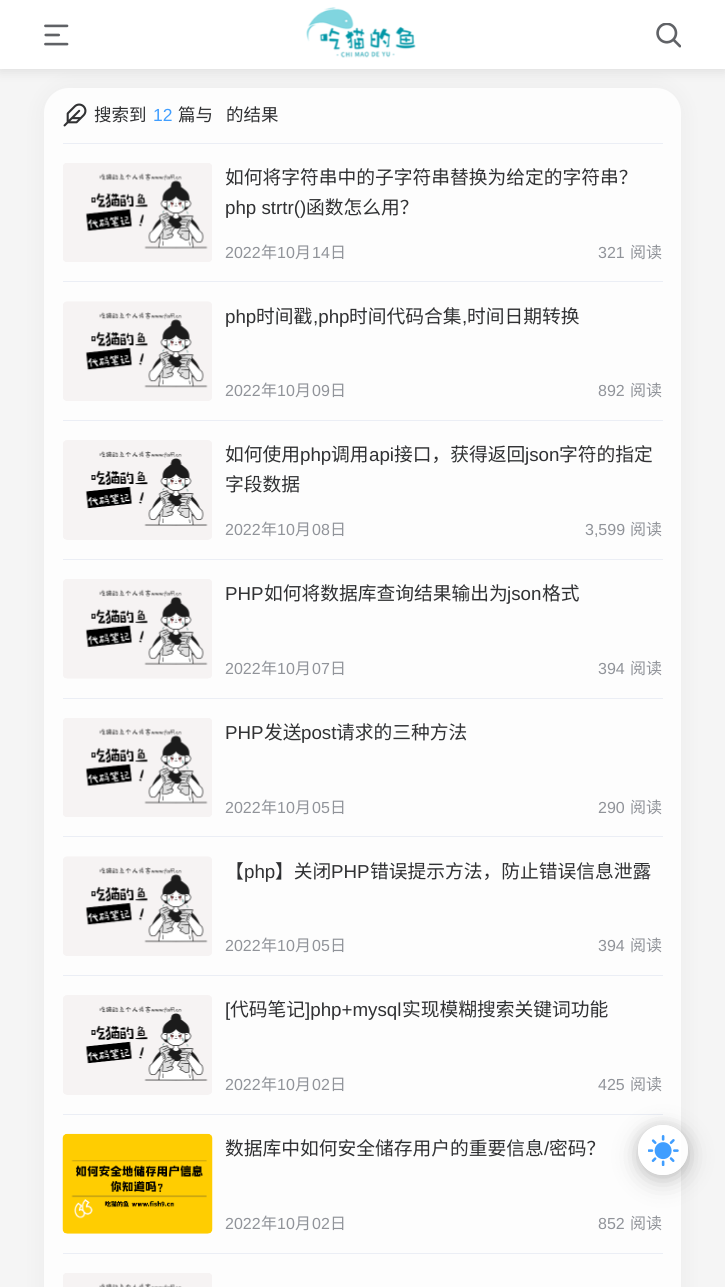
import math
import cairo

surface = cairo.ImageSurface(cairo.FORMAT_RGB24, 725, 1287)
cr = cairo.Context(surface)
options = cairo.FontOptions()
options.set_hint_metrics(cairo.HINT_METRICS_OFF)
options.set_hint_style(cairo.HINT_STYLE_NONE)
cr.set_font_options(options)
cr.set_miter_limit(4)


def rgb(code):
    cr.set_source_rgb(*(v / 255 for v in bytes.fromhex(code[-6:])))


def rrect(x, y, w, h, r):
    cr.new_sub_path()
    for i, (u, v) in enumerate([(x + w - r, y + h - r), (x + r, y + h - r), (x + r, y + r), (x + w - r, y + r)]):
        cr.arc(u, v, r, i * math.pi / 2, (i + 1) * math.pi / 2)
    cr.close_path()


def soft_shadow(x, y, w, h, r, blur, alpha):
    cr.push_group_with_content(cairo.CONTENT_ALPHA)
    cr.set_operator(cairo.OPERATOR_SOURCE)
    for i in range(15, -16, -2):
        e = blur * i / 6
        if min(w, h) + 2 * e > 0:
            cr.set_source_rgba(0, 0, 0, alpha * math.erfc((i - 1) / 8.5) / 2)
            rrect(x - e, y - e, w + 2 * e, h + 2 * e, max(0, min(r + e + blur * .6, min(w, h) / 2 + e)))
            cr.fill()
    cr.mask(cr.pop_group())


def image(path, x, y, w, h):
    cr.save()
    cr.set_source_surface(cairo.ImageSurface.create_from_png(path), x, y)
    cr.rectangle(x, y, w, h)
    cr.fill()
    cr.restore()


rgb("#f5f5f5")
cr.paint()
rgb("#9e9e9e")
soft_shadow(50, 94, 625, 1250, 19, 12.5, 0.22)
rgb("#fdfdfd")
rrect(44, 88, 637, 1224, 25)
cr.fill()
rgb("#000000")
soft_shadow(0, 3, 725, 68, 0, 6, 0.1)
rgb("#ffffff")
cr.rectangle(0, 0, 725, 69)
cr.fill()
image("img/1.png", 44, 24, 25, 22)
image("img/2.png", 306, 7, 110, 51)
image("img/3.png", 656, 23, 25, 25)
rgb("#ebeef5")
cr.rectangle(63, 143, 600, 1)
cr.fill()
image("img/4.png", 63, 103, 24, 24)
cr.rectangle(63, 281, 600, 1)
cr.fill()
image("img/5.png", 63, 163, 149, 99)
cr.rectangle(63, 420, 600, 1)
cr.fill()
image("img/6.png", 63, 301, 149, 100)
cr.rectangle(63, 559, 600, 1)
cr.fill()
image("img/7.png", 63, 440, 149, 100)
cr.rectangle(63, 698, 600, 1)
cr.fill()
image("img/8.png", 63, 579, 149, 100)
cr.rectangle(63, 836, 600, 1)
cr.fill()
image("img/5.png", 63, 718, 149, 99)
cr.rectangle(63, 975, 600, 1)
cr.fill()
image("img/6.png", 63, 856, 149, 100)
cr.rectangle(63, 1114, 600, 1)
cr.fill()
image("img/7.png", 63, 995, 149, 100)
cr.rectangle(63, 1253, 600, 1)
cr.fill()
image("img/9.png", 62, 1133, 151, 101)
image("img/10.png", 63, 1273, 149, 14)
cr.save()
cr.set_fill_rule(cairo.FILL_RULE_EVEN_ODD)
cr.new_path()
cr.move_to(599, 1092)
cr.line_to(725, 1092)
cr.line_to(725, 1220)
cr.line_to(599, 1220)
cr.close_path()
cr.move_to(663, 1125)
cr.curve_to(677, 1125, 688, 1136, 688, 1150)
cr.curve_to(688, 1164, 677, 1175, 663, 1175)
cr.curve_to(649, 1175, 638, 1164, 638, 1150)
cr.curve_to(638, 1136, 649, 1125, 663, 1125)
cr.close_path()
cr.clip()
rgb("#000000")
soft_shadow(638, 1131, 50, 50, 25, 12.5, 0.2)
cr.restore()
cr.save()
cr.set_fill_rule(cairo.FILL_RULE_EVEN_ODD)
cr.new_path()
cr.move_to(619, 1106)
cr.line_to(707, 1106)
cr.line_to(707, 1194)
cr.line_to(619, 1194)
cr.close_path()
cr.move_to(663, 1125)
cr.curve_to(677, 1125, 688, 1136, 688, 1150)
cr.curve_to(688, 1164, 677, 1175, 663, 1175)
cr.curve_to(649, 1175, 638, 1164, 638, 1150)
cr.curve_to(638, 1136, 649, 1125, 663, 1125)
cr.close_path()
cr.clip()
rgb("#000000")
soft_shadow(638, 1125, 50, 50, 25, 6, 0.1)
cr.restore()
cr.set_source_rgba(1, 1, 1, 0.85)
cr.arc(663, 1150, 25, 0, 2 * math.pi)
cr.fill()
image("img/11.png", 648, 1135, 31, 31)
cr.select_font_face("Noto Sans CJK SC")
cr.set_font_size(17.5)
rgb("#303133")
cr.move_to(94, 121)
cr.show_text("搜索到")
cr.select_font_face("Liberation Sans")
rgb("#409eff")
cr.move_to(153, 121)
cr.show_text("12")
cr.select_font_face("Noto Sans CJK SC")
rgb("#303133")
cr.move_to(178, 121)
cr.show_text("篇与")
cr.move_to(226, 121)
cr.show_text("的结果")
cr.set_font_size(18.75)
cr.move_to(225, 184)
cr.show_text("如何将字符串中的子字符串替换为给定的字符串？")
cr.select_font_face("Liberation Sans")
cr.move_to(225, 214)
cr.show_text("php strtr()")
cr.select_font_face("Noto Sans CJK SC")
cr.move_to(306, 214)
cr.show_text("函数怎么用？")
cr.select_font_face("Liberation Sans")
cr.set_font_size(16)
rgb("#909399")
cr.move_to(225, 258)
cr.show_text("2022")
cr.select_font_face("Noto Sans CJK SC")
cr.move_to(261, 258)
cr.show_text("年")
cr.select_font_face("Liberation Sans")
cr.move_to(277, 258)
cr.show_text("10")
cr.select_font_face("Noto Sans CJK SC")
cr.move_to(295, 258)
cr.show_text("月")
cr.select_font_face("Liberation Sans")
cr.move_to(312, 258)
cr.show_text("14")
cr.select_font_face("Noto Sans CJK SC")
cr.move_to(330, 258)
cr.show_text("日")
cr.select_font_face("Liberation Sans")
cr.move_to(598, 258)
cr.show_text("321")
cr.select_font_face("Noto Sans CJK SC")
cr.move_to(630, 258)
cr.show_text("阅读")
cr.select_font_face("Liberation Sans")
cr.set_font_size(18.75)
rgb("#303133")
cr.move_to(225, 323)
cr.show_text("php")
cr.select_font_face("Noto Sans CJK SC")
cr.move_to(256, 323)
cr.show_text("时间戳")
cr.select_font_face("Liberation Sans")
cr.move_to(313, 323)
cr.show_text(",php")
cr.select_font_face("Noto Sans CJK SC")
cr.move_to(349, 323)
cr.show_text("时间代码合集")
cr.select_font_face("Liberation Sans")
cr.move_to(462, 323)
cr.show_text(",")
cr.select_font_face("Noto Sans CJK SC")
cr.move_to(467, 323)
cr.show_text("时间日期转换")
cr.select_font_face("Liberation Sans")
cr.set_font_size(16)
rgb("#909399")
cr.move_to(225, 396)
cr.show_text("2022")
cr.select_font_face("Noto Sans CJK SC")
cr.move_to(261, 396)
cr.show_text("年")
cr.select_font_face("Liberation Sans")
cr.move_to(277, 396)
cr.show_text("10")
cr.select_font_face("Noto Sans CJK SC")
cr.move_to(295, 396)
cr.show_text("月")
cr.select_font_face("Liberation Sans")
cr.move_to(312, 396)
cr.show_text("09")
cr.select_font_face("Noto Sans CJK SC")
cr.move_to(330, 396)
cr.show_text("日")
cr.select_font_face("Liberation Sans")
cr.move_to(598, 396)
cr.show_text("892")
cr.select_font_face("Noto Sans CJK SC")
cr.move_to(630, 396)
cr.show_text("阅读")
cr.set_font_size(18.75)
rgb("#303133")
cr.move_to(225, 461)
cr.show_text("如何使用")
cr.select_font_face("Liberation Sans")
cr.move_to(300, 461)
cr.show_text("php")
cr.select_font_face("Noto Sans CJK SC")
cr.move_to(331, 461)
cr.show_text("调用")
cr.select_font_face("Liberation Sans")
cr.move_to(369, 461)
cr.show_text("api")
cr.select_font_face("Noto Sans CJK SC")
cr.move_to(394, 461)
cr.show_text("接口，获得返回")
cr.select_font_face("Liberation Sans")
cr.move_to(525, 461)
cr.show_text("json")
cr.select_font_face("Noto Sans CJK SC")
cr.move_to(559, 461)
cr.show_text("字符的指定")
cr.move_to(225, 491)
cr.show_text("字段数据")
cr.select_font_face("Liberation Sans")
cr.set_font_size(16)
rgb("#909399")
cr.move_to(225, 535)
cr.show_text("2022")
cr.select_font_face("Noto Sans CJK SC")
cr.move_to(261, 535)
cr.show_text("年")
cr.select_font_face("Liberation Sans")
cr.move_to(277, 535)
cr.show_text("10")
cr.select_font_face("Noto Sans CJK SC")
cr.move_to(295, 535)
cr.show_text("月")
cr.select_font_face("Liberation Sans")
cr.move_to(312, 535)
cr.show_text("08")
cr.select_font_face("Noto Sans CJK SC")
cr.move_to(330, 535)
cr.show_text("日")
cr.select_font_face("Liberation Sans")
cr.move_to(585, 535)
cr.show_text("3,599")
cr.select_font_face("Noto Sans CJK SC")
cr.move_to(630, 535)
cr.show_text("阅读")
cr.select_font_face("Liberation Sans")
cr.set_font_size(18.75)
rgb("#303133")
cr.move_to(225, 600)
cr.show_text("PHP")
cr.select_font_face("Noto Sans CJK SC")
cr.move_to(264, 600)
cr.show_text("如何将数据库查询结果输出为")
cr.select_font_face("Liberation Sans")
cr.move_to(507, 600)
cr.show_text("json")
cr.select_font_face("Noto Sans CJK SC")
cr.move_to(542, 600)
cr.show_text("格式")
cr.select_font_face("Liberation Sans")
cr.set_font_size(16)
rgb("#909399")
cr.move_to(225, 674)
cr.show_text("2022")
cr.select_font_face("Noto Sans CJK SC")
cr.move_to(261, 674)
cr.show_text("年")
cr.select_font_face("Liberation Sans")
cr.move_to(277, 674)
cr.show_text("10")
cr.select_font_face("Noto Sans CJK SC")
cr.move_to(295, 674)
cr.show_text("月")
cr.select_font_face("Liberation Sans")
cr.move_to(312, 674)
cr.show_text("07")
cr.select_font_face("Noto Sans CJK SC")
cr.move_to(330, 674)
cr.show_text("日")
cr.select_font_face("Liberation Sans")
cr.move_to(598, 674)
cr.show_text("394")
cr.select_font_face("Noto Sans CJK SC")
cr.move_to(630, 674)
cr.show_text("阅读")
cr.select_font_face("Liberation Sans")
cr.set_font_size(18.75)
rgb("#303133")
cr.move_to(225, 739)
cr.show_text("PHP")
cr.select_font_face("Noto Sans CJK SC")
cr.move_to(264, 739)
cr.show_text("发送")
cr.select_font_face("Liberation Sans")
cr.move_to(301, 739)
cr.show_text("post")
cr.select_font_face("Noto Sans CJK SC")
cr.move_to(336, 739)
cr.show_text("请求的三种方法")
cr.select_font_face("Liberation Sans")
cr.set_font_size(16)
rgb("#909399")
cr.move_to(225, 813)
cr.show_text("2022")
cr.select_font_face("Noto Sans CJK SC")
cr.move_to(261, 813)
cr.show_text("年")
cr.select_font_face("Liberation Sans")
cr.move_to(277, 813)
cr.show_text("10")
cr.select_font_face("Noto Sans CJK SC")
cr.move_to(295, 813)
cr.show_text("月")
cr.select_font_face("Liberation Sans")
cr.move_to(312, 813)
cr.show_text("05")
cr.select_font_face("Noto Sans CJK SC")
cr.move_to(330, 813)
cr.show_text("日")
cr.select_font_face("Liberation Sans")
cr.move_to(598, 813)
cr.show_text("290")
cr.select_font_face("Noto Sans CJK SC")
cr.move_to(630, 813)
cr.show_text("阅读")
cr.set_font_size(18.75)
rgb("#303133")
cr.move_to(225, 878)
cr.show_text("【")
cr.select_font_face("Liberation Sans")
cr.move_to(244, 878)
cr.show_text("php")
cr.select_font_face("Noto Sans CJK SC")
cr.move_to(275, 878)
cr.show_text("】关闭")
cr.select_font_face("Liberation Sans")
cr.move_to(331, 878)
cr.show_text("PHP")
cr.select_font_face("Noto Sans CJK SC")
cr.move_to(370, 878)
cr.show_text("错误提示方法，防止错误信息泄露")
cr.select_font_face("Liberation Sans")
cr.set_font_size(16)
rgb("#909399")
cr.move_to(225, 951)
cr.show_text("2022")
cr.select_font_face("Noto Sans CJK SC")
cr.move_to(261, 951)
cr.show_text("年")
cr.select_font_face("Liberation Sans")
cr.move_to(277, 951)
cr.show_text("10")
cr.select_font_face("Noto Sans CJK SC")
cr.move_to(295, 951)
cr.show_text("月")
cr.select_font_face("Liberation Sans")
cr.move_to(312, 951)
cr.show_text("05")
cr.select_font_face("Noto Sans CJK SC")
cr.move_to(330, 951)
cr.show_text("日")
cr.select_font_face("Liberation Sans")
cr.move_to(598, 951)
cr.show_text("394")
cr.select_font_face("Noto Sans CJK SC")
cr.move_to(630, 951)
cr.show_text("阅读")
cr.select_font_face("Liberation Sans")
cr.set_font_size(18.75)
rgb("#303133")
cr.move_to(225, 1016)
cr.show_text("[")
cr.select_font_face("Noto Sans CJK SC")
cr.move_to(230, 1016)
cr.show_text("代码笔记")
cr.select_font_face("Liberation Sans")
cr.move_to(305, 1016)
cr.show_text("]php+mysql")
cr.select_font_face("Noto Sans CJK SC")
cr.move_to(402, 1016)
cr.show_text("实现模糊搜索关键词功能")
cr.select_font_face("Liberation Sans")
cr.set_font_size(16)
rgb("#909399")
cr.move_to(225, 1090)
cr.show_text("2022")
cr.select_font_face("Noto Sans CJK SC")
cr.move_to(261, 1090)
cr.show_text("年")
cr.select_font_face("Liberation Sans")
cr.move_to(277, 1090)
cr.show_text("10")
cr.select_font_face("Noto Sans CJK SC")
cr.move_to(295, 1090)
cr.show_text("月")
cr.select_font_face("Liberation Sans")
cr.move_to(312, 1090)
cr.show_text("02")
cr.select_font_face("Noto Sans CJK SC")
cr.move_to(330, 1090)
cr.show_text("日")
cr.select_font_face("Liberation Sans")
cr.move_to(598, 1090)
cr.show_text("425")
cr.select_font_face("Noto Sans CJK SC")
cr.move_to(630, 1090)
cr.show_text("阅读")
cr.set_font_size(18.75)
rgb("#303133")
cr.move_to(225, 1155)
cr.show_text("数据库中如何安全储存用户的重要信息")
cr.select_font_face("Liberation Sans")
cr.move_to(544, 1155)
cr.show_text("/")
cr.select_font_face("Noto Sans CJK SC")
cr.move_to(549, 1155)
cr.show_text("密码？")
cr.select_font_face("Liberation Sans")
cr.set_font_size(16)
rgb("#909399")
cr.move_to(225, 1229)
cr.show_text("2022")
cr.select_font_face("Noto Sans CJK SC")
cr.move_to(261, 1229)
cr.show_text("年")
cr.select_font_face("Liberation Sans")
cr.move_to(277, 1229)
cr.show_text("10")
cr.select_font_face("Noto Sans CJK SC")
cr.move_to(295, 1229)
cr.show_text("月")
cr.select_font_face("Liberation Sans")
cr.move_to(312, 1229)
cr.show_text("02")
cr.select_font_face("Noto Sans CJK SC")
cr.move_to(330, 1229)
cr.show_text("日")
cr.select_font_face("Liberation Sans")
cr.move_to(598, 1229)
cr.show_text("852")
cr.select_font_face("Noto Sans CJK SC")
cr.move_to(630, 1229)
cr.show_text("阅读")
surface.write_to_png("page.png")
